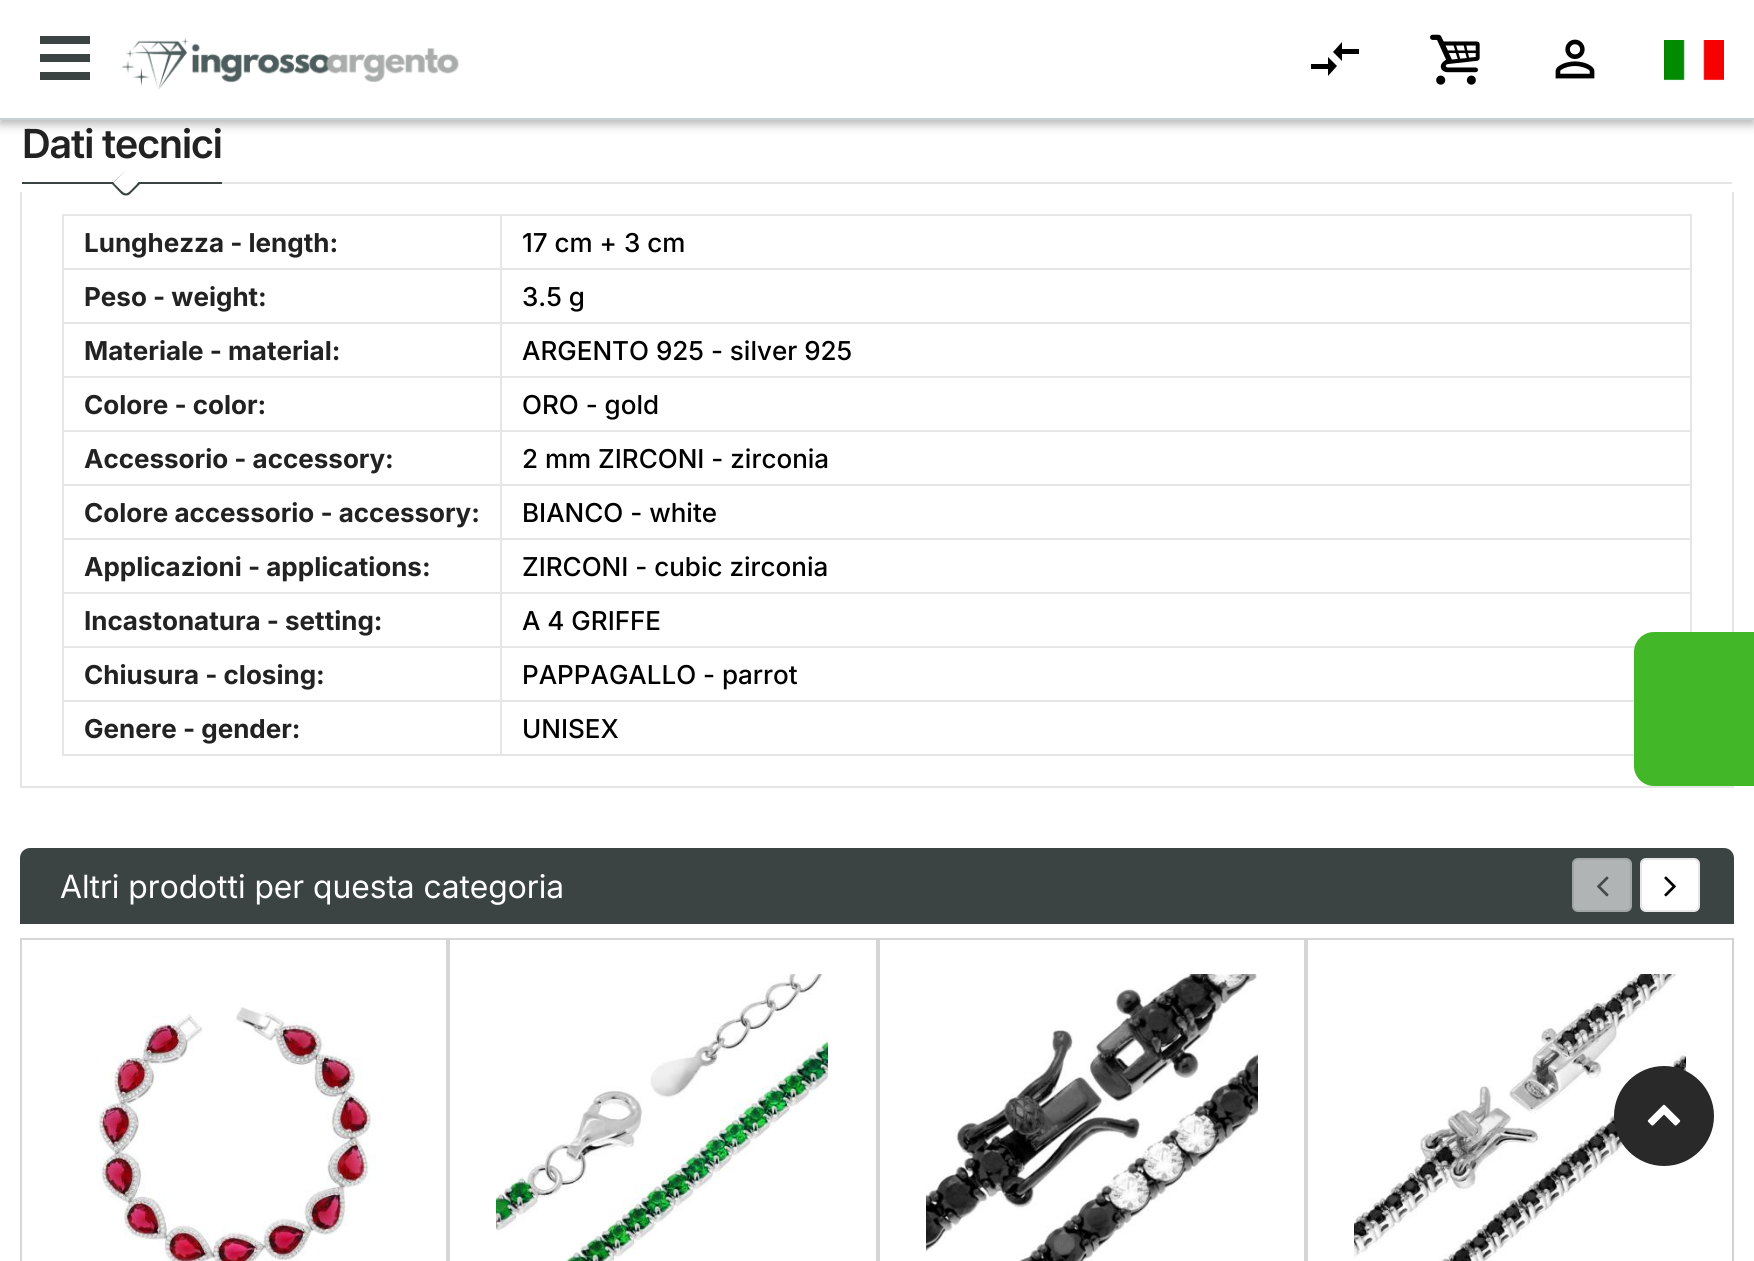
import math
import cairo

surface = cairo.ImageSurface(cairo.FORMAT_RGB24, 1754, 1261)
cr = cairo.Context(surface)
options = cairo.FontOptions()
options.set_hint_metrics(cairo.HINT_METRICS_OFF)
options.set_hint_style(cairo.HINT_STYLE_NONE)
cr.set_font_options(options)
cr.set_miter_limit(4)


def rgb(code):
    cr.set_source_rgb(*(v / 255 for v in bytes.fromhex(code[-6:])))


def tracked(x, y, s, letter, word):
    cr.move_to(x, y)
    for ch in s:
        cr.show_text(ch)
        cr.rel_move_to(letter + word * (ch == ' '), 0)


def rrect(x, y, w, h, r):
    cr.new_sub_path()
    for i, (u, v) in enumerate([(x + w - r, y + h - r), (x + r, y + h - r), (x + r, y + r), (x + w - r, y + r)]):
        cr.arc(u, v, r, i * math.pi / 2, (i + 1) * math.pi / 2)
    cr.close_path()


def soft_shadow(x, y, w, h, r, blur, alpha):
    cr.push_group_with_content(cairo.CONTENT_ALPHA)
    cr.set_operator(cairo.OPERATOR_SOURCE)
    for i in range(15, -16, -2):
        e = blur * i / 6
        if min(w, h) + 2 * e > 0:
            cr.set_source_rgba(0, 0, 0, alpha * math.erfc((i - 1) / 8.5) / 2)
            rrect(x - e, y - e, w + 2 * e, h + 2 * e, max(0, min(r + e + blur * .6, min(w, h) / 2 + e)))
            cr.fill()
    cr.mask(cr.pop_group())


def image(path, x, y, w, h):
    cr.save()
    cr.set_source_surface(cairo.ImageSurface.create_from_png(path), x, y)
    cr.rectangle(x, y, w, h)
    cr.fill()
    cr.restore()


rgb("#ffffff")
cr.paint()
rgb("#b4b4b4")
soft_shadow(0, 4, 1754, 120, 0, 5, 1)
rgb("#ffffff")
cr.rectangle(0, 0, 1754, 118)
cr.fill()
rgb("#c7d1d1")
cr.rectangle(0, 118, 1754, 2)
cr.fill()
image("img/1.png", 121, 37, 338, 53)
rgb("#000000")
cr.new_path()
cr.move_to(1342, 61)
cr.line_to(1333, 52)
cr.line_to(1342, 42)
cr.line_to(1342, 49)
cr.line_to(1359, 49)
cr.line_to(1359, 54)
cr.line_to(1342, 54)
cr.close_path()
cr.move_to(1328, 64)
cr.line_to(1328, 57)
cr.line_to(1337, 66)
cr.line_to(1328, 76)
cr.line_to(1328, 69)
cr.line_to(1311, 69)
cr.line_to(1311, 64)
cr.close_path()
cr.fill()
image("img/2.png", 1430, 34, 50, 51)
image("img/3.png", 1555, 39, 40, 40)
image("img/4.png", 1664, 40, 60, 41)
for x, y, w, h, color in [
    (40, 36, 50, 8, "#3b4343"),
    (40, 54, 50, 8, "#3b4343"),
    (40, 72, 50, 8, "#3b4343"),
    (1732, 192, 2, 440, "#e5e5e5"),
    (20, 786, 1714, 2, "#e5e5e5"),
    (20, 192, 2, 596, "#e5e5e5"),
    (22, 182, 200, 2, "#3b4343"),
]:
    rgb(color)
    cr.rectangle(x, y, w, h)
    cr.fill()
rgb("#ffffff")
cr.new_path()
cr.move_to(126, 170)
cr.line_to(138.5, 182.5)
cr.curve_to(124, 197, 128, 197, 113, 182.5)
cr.close_path()
cr.fill()
rgb("#3b4343")
cr.set_fill_rule(cairo.FILL_RULE_EVEN_ODD)
cr.new_path()
cr.move_to(126, 170)
cr.line_to(140, 184)
cr.line_to(130, 194)
cr.curve_to(128, 196, 124, 196, 121.5, 194)
cr.line_to(112, 184)
cr.close_path()
cr.move_to(126, 170)
cr.line_to(138.5, 182.5)
cr.curve_to(124, 197, 128, 197, 113, 182.5)
cr.close_path()
cr.fill()
for x, y, w, h, color in [
    (222, 182, 1510, 2, "#e5e5e5"),
    (62, 754, 1572, 2, "#e6e6e6"),
    (500, 214, 1192, 2, "#e6e6e6"),
    (500, 268, 1192, 2, "#e6e6e6"),
    (500, 322, 1192, 2, "#e6e6e6"),
    (500, 376, 1192, 2, "#e6e6e6"),
    (500, 430, 1192, 2, "#e6e6e6"),
    (500, 484, 1192, 2, "#e6e6e6"),
    (500, 538, 1192, 2, "#e6e6e6"),
    (500, 592, 1192, 2, "#e6e6e6"),
    (500, 646, 1135, 2, "#e6e6e6"),
    (500, 700, 1134, 2, "#e6e6e6"),
    (500, 700, 2, 56, "#e6e6e6"),
    (62, 700, 440, 2, "#e6e6e6"),
    (500, 646, 2, 56, "#e6e6e6"),
    (62, 646, 440, 2, "#e6e6e6"),
    (500, 592, 2, 56, "#e6e6e6"),
    (62, 592, 440, 2, "#e6e6e6"),
    (500, 538, 2, 56, "#e6e6e6"),
    (62, 538, 440, 2, "#e6e6e6"),
    (500, 484, 2, 56, "#e6e6e6"),
    (62, 484, 440, 2, "#e6e6e6"),
    (500, 430, 2, 56, "#e6e6e6"),
    (62, 430, 440, 2, "#e6e6e6"),
    (500, 376, 2, 56, "#e6e6e6"),
    (62, 376, 440, 2, "#e6e6e6"),
    (500, 322, 2, 56, "#e6e6e6"),
    (62, 322, 440, 2, "#e6e6e6"),
    (500, 268, 2, 56, "#e6e6e6"),
    (62, 268, 440, 2, "#e6e6e6"),
    (500, 214, 2, 56, "#e6e6e6"),
    (62, 214, 440, 2, "#e6e6e6"),
    (62, 700, 2, 56, "#e6e6e6"),
    (62, 646, 2, 56, "#e6e6e6"),
    (62, 592, 2, 56, "#e6e6e6"),
    (62, 538, 2, 56, "#e6e6e6"),
    (62, 484, 2, 56, "#e6e6e6"),
    (62, 430, 2, 56, "#e6e6e6"),
    (62, 376, 2, 56, "#e6e6e6"),
    (62, 322, 2, 56, "#e6e6e6"),
    (62, 268, 2, 56, "#e6e6e6"),
    (62, 214, 2, 56, "#e6e6e6"),
    (1690, 592, 2, 40, "#e6e6e6"),
    (1690, 538, 2, 56, "#e6e6e6"),
    (1690, 484, 2, 56, "#e6e6e6"),
    (1690, 430, 2, 56, "#e6e6e6"),
    (1690, 376, 2, 56, "#e6e6e6"),
    (1690, 322, 2, 56, "#e6e6e6"),
    (1690, 268, 2, 56, "#e6e6e6"),
    (1690, 214, 2, 56, "#e6e6e6"),
]:
    rgb(color)
    cr.rectangle(x, y, w, h)
    cr.fill()
rgb("#3b4343")
cr.new_path()
cr.move_to(30, 848)
cr.line_to(1724, 848)
cr.curve_to(1729.5, 848, 1734, 852.5, 1734, 858)
cr.line_to(1734, 924)
cr.line_to(20, 924)
cr.line_to(20, 858)
cr.curve_to(20, 852.5, 24.5, 848, 30, 848)
cr.close_path()
cr.fill()
rgb("#b1b4b4")
rrect(1573, 859, 58, 52, 5)
cr.fill_preserve()
rgb("#a2a5a5")
cr.stroke()
image("img/5.png", 1597, 876, 12, 21)
rgb("#ffffff")
rrect(1641, 859, 58, 52, 5)
cr.fill_preserve()
rgb("#e6e6e6")
cr.stroke()
image("img/6.png", 1664, 876, 12, 21)
cr.rectangle(21, 939, 426, 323)
rgb("#d6d6d6")
cr.stroke()
image("img/7.png", 96, 1007, 280, 254)
cr.rectangle(449, 939, 428, 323)
cr.stroke()
image("img/8.png", 496, 974, 332, 287)
cr.rectangle(879, 939, 426, 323)
cr.stroke()
image("img/9.png", 926, 974, 332, 287)
cr.rectangle(1307, 939, 426, 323)
cr.stroke()
image("img/10.png", 1354, 974, 332, 287)
rgb("#d2d2d2")
cr.rectangle(1732, 938, 2, 323)
cr.fill()
rgb("#42b728")
cr.new_path()
cr.move_to(1654, 632)
cr.line_to(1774, 632)
cr.line_to(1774, 786)
cr.line_to(1654, 786)
cr.curve_to(1643, 786, 1634, 777, 1634, 766)
cr.line_to(1634, 652)
cr.curve_to(1634, 641, 1643, 632, 1654, 632)
cr.close_path()
cr.fill()
rgb("#292929")
cr.arc(1664, 1116, 50, 0, 2 * math.pi)
cr.fill()
image("img/11.png", 1647, 1104, 34, 22)
cr.select_font_face("Inter SemiBold")
cr.set_font_size(40)
rgb("#222222")
tracked(22, 158, "Dati tecnici", -1, 0)
cr.select_font_face("Inter", cairo.FONT_SLANT_NORMAL, cairo.FONT_WEIGHT_BOLD)
cr.set_font_size(26)
cr.move_to(84, 252)
cr.show_text("Lunghezza - length:")
cr.select_font_face("Inter Medium")
rgb("#000000")
cr.move_to(522, 252)
cr.show_text("17 cm + 3 cm")
cr.select_font_face("Inter", cairo.FONT_SLANT_NORMAL, cairo.FONT_WEIGHT_BOLD)
rgb("#222222")
cr.move_to(84, 306)
cr.show_text("Peso - weight:")
cr.select_font_face("Inter Medium")
rgb("#000000")
cr.move_to(522, 306)
cr.show_text("3.5 g")
cr.select_font_face("Inter", cairo.FONT_SLANT_NORMAL, cairo.FONT_WEIGHT_BOLD)
rgb("#222222")
cr.move_to(84, 360)
cr.show_text("Materiale - material:")
cr.select_font_face("Inter Medium")
rgb("#000000")
cr.move_to(522, 360)
cr.show_text("ARGENTO 925 - silver 925")
cr.select_font_face("Inter", cairo.FONT_SLANT_NORMAL, cairo.FONT_WEIGHT_BOLD)
rgb("#222222")
cr.move_to(84, 414)
cr.show_text("Colore - color:")
cr.select_font_face("Inter Medium")
rgb("#000000")
cr.move_to(522, 414)
cr.show_text("ORO - gold")
cr.select_font_face("Inter", cairo.FONT_SLANT_NORMAL, cairo.FONT_WEIGHT_BOLD)
rgb("#222222")
cr.move_to(84, 468)
cr.show_text("Accessorio - accessory:")
cr.select_font_face("Inter Medium")
rgb("#000000")
cr.move_to(522, 468)
cr.show_text("2 mm ZIRCONI - zirconia")
cr.select_font_face("Inter", cairo.FONT_SLANT_NORMAL, cairo.FONT_WEIGHT_BOLD)
rgb("#222222")
cr.move_to(84, 522)
cr.show_text("Colore accessorio - accessory:")
cr.select_font_face("Inter Medium")
rgb("#000000")
cr.move_to(522, 522)
cr.show_text("BIANCO - white")
cr.select_font_face("Inter", cairo.FONT_SLANT_NORMAL, cairo.FONT_WEIGHT_BOLD)
rgb("#222222")
cr.move_to(84, 576)
cr.show_text("Applicazioni - applications:")
cr.select_font_face("Inter Medium")
rgb("#000000")
cr.move_to(522, 576)
cr.show_text("ZIRCONI - cubic zirconia")
cr.select_font_face("Inter", cairo.FONT_SLANT_NORMAL, cairo.FONT_WEIGHT_BOLD)
rgb("#222222")
cr.move_to(84, 630)
cr.show_text("Incastonatura - setting:")
cr.select_font_face("Inter Medium")
rgb("#000000")
cr.move_to(522, 630)
cr.show_text("A 4 GRIFFE")
cr.select_font_face("Inter", cairo.FONT_SLANT_NORMAL, cairo.FONT_WEIGHT_BOLD)
rgb("#222222")
cr.move_to(84, 684)
cr.show_text("Chiusura - closing:")
cr.select_font_face("Inter Medium")
rgb("#000000")
cr.move_to(522, 684)
cr.show_text("PAPPAGALLO - parrot")
cr.select_font_face("Inter", cairo.FONT_SLANT_NORMAL, cairo.FONT_WEIGHT_BOLD)
rgb("#222222")
cr.move_to(84, 738)
cr.show_text("Genere - gender:")
cr.select_font_face("Inter Medium")
rgb("#000000")
cr.move_to(522, 738)
cr.show_text("UNISEX")
cr.select_font_face("Inter")
cr.set_font_size(32)
rgb("#ffffff")
cr.move_to(60, 898)
cr.show_text("Altri prodotti per questa categoria")
surface.write_to_png("page.png")
